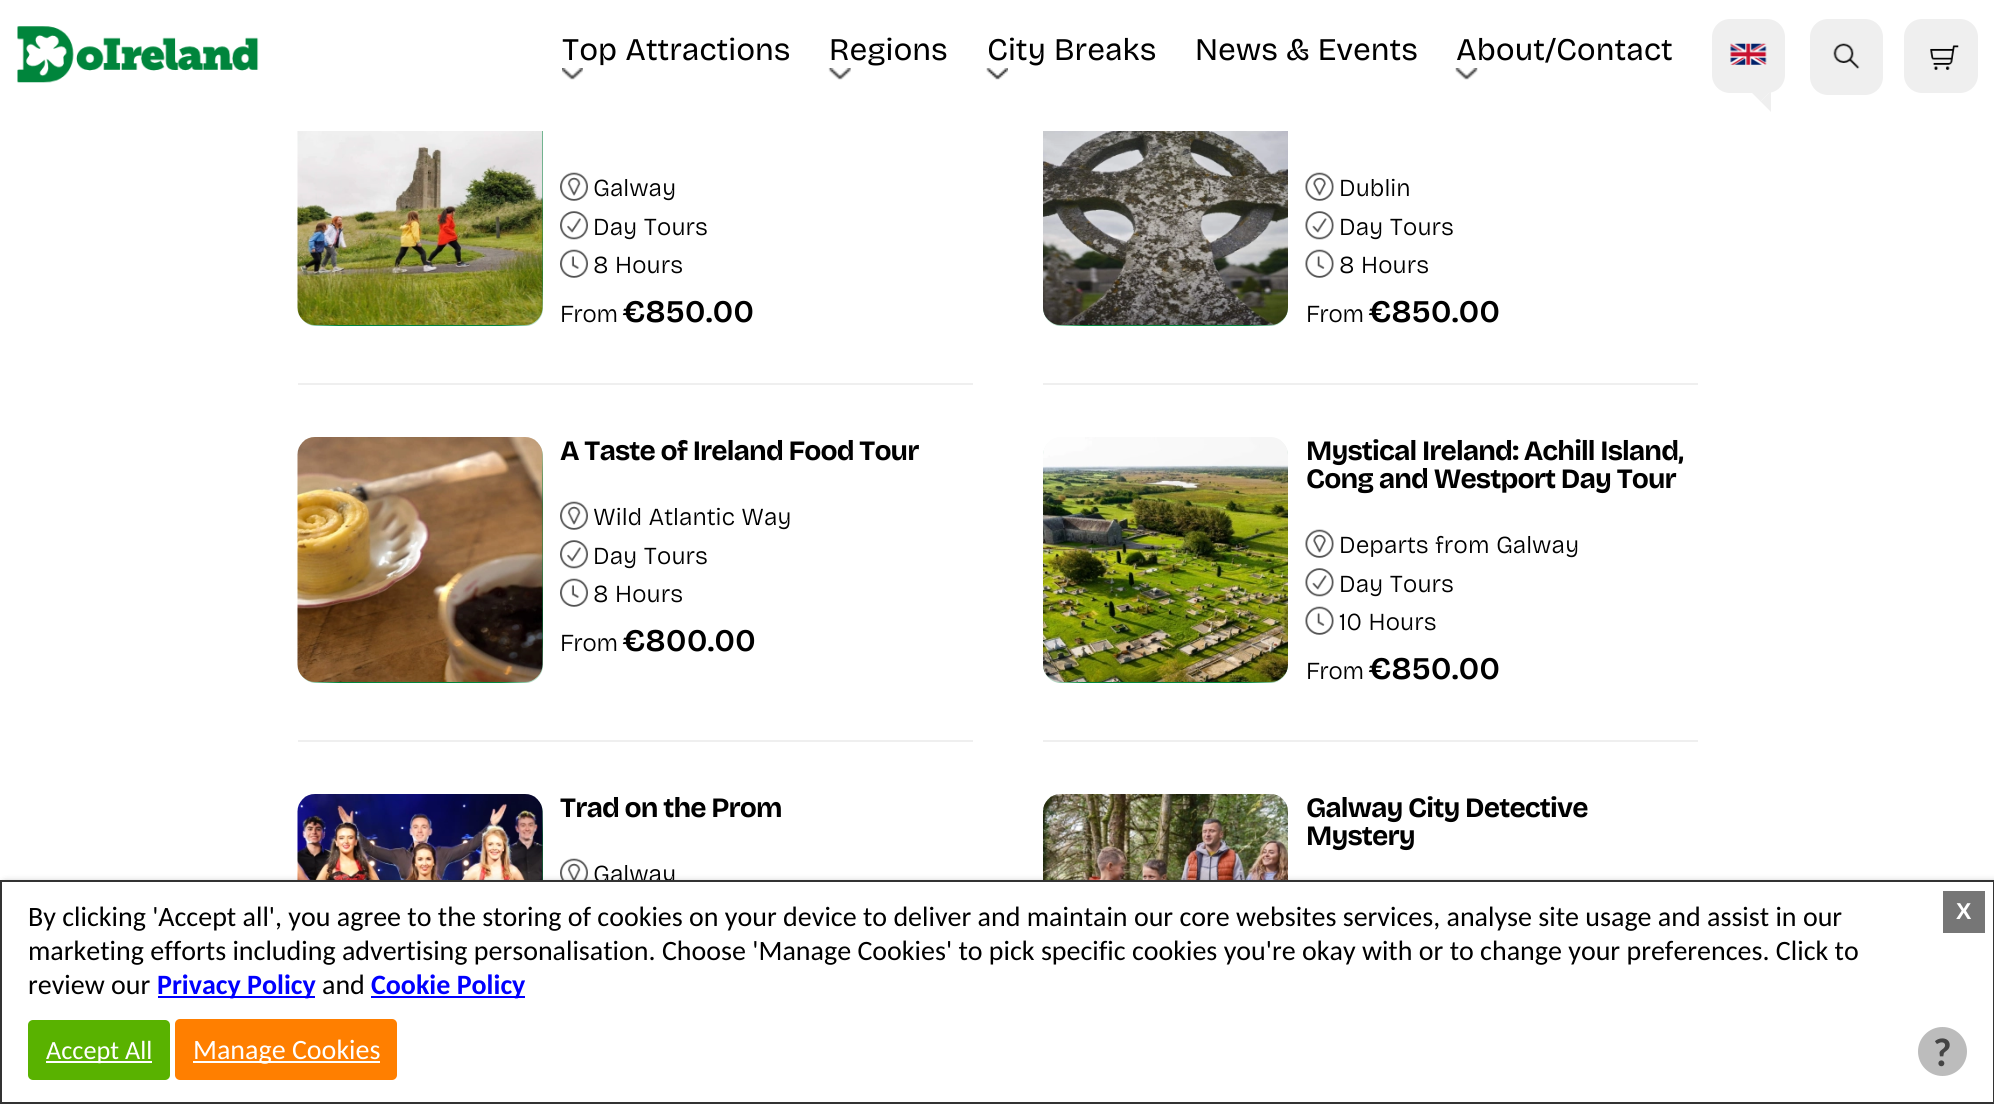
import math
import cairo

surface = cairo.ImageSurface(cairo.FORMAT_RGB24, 1994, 1104)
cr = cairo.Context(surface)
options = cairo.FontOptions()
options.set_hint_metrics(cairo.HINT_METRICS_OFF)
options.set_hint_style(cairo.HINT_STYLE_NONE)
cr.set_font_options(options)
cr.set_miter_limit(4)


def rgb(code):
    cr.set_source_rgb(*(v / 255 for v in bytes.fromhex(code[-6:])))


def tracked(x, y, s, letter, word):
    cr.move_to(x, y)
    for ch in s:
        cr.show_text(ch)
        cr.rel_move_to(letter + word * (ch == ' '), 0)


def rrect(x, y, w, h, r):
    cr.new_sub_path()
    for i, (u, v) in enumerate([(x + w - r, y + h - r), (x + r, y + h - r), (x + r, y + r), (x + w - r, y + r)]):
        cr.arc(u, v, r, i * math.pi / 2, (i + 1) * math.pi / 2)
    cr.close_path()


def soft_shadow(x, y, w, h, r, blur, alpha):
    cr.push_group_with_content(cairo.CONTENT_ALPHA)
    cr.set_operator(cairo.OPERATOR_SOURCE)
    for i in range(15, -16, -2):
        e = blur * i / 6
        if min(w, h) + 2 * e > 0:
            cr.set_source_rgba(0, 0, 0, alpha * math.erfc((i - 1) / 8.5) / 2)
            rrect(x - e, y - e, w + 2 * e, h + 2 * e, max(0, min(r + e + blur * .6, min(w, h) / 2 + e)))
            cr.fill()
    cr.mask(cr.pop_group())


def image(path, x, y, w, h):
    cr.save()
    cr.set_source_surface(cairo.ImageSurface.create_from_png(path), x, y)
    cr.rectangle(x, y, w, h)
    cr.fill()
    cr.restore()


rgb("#ffffff")
cr.paint()
gradient = cairo.RadialGradient(420, 203, 0, 420, 203, 173)
gradient.add_color_stop_rgba(0.85, 0, 0.522, 0.235, 1)
gradient.add_color_stop_rgba(1, 1, 1, 1, 1)
cr.set_source(gradient)
rrect(298, 81, 245, 245, 18)
cr.fill()
gradient = cairo.RadialGradient(1166, 203, 0, 1166, 203, 173)
gradient.add_color_stop_rgba(0.85, 0, 0.522, 0.235, 1)
gradient.add_color_stop_rgba(1, 1, 1, 1, 1)
cr.set_source(gradient)
rrect(1043, 81, 245, 245, 18)
cr.fill()
rgb("#ffffff")
cr.rectangle(298, 81, 990, 50)
cr.fill()
image("img/1.png", 17, 26, 242, 57)
rgb("#efefef")
rrect(1712, 19, 73, 74, 18)
cr.fill()
image("img/2.png", 1730, 43, 37, 22)
cr.new_path()
cr.move_to(1750, 91)
cr.line_to(1771, 91)
cr.line_to(1760.5, 101.5)
cr.close_path()
cr.fill()
cr.new_path()
cr.move_to(1771, 91)
cr.line_to(1771, 112)
cr.line_to(1760.5, 101.5)
cr.close_path()
cr.fill()
rrect(1810, 19, 73, 76, 18)
cr.fill()
image("img/3.png", 1833, 43, 27, 26)
rrect(1904, 19, 74, 74, 18)
cr.fill()
image("img/4.png", 1930, 45, 29, 25)
image("img/5.png", 562, 68, 21, 12)
image("img/6.png", 828, 68, 23, 12)
image("img/7.png", 986, 68, 22, 12)
image("img/8.png", 1455, 68, 23, 12)
cr.rectangle(298, 383, 675, 2)
cr.fill()
image("img/9.png", 297, 131, 246, 194)
image("img/10.png", 560, 172, 28, 29)
image("img/11.png", 560, 211, 28, 29)
image("img/12.png", 560, 249, 28, 29)
cr.rectangle(1043, 383, 655, 2)
cr.fill()
image("img/13.png", 1043, 131, 245, 194)
image("img/14.png", 1305, 172, 29, 29)
image("img/15.png", 1305, 211, 29, 29)
image("img/16.png", 1305, 249, 29, 29)
cr.rectangle(298, 740, 675, 2)
cr.fill()
gradient = cairo.RadialGradient(420, 560, 0, 420, 560, 173)
gradient.add_color_stop_rgba(0.85, 0, 0.522, 0.235, 1)
gradient.add_color_stop_rgba(1, 1, 1, 1, 1)
cr.set_source(gradient)
rrect(298, 438, 245, 245, 18)
cr.fill()
image("img/17.png", 297, 437, 246, 245)
image("img/18.png", 560, 501, 28, 29)
image("img/11.png", 560, 540, 28, 29)
image("img/12.png", 560, 578, 28, 29)
rgb("#efefef")
cr.rectangle(1043, 740, 655, 2)
cr.fill()
gradient = cairo.RadialGradient(1166, 560, 0, 1166, 560, 173)
gradient.add_color_stop_rgba(0.85, 0, 0.522, 0.235, 1)
gradient.add_color_stop_rgba(1, 1, 1, 1, 1)
cr.set_source(gradient)
rrect(1043, 438, 245, 245, 18)
cr.fill()
image("img/19.png", 1043, 437, 245, 245)
image("img/20.png", 1305, 529, 29, 29)
image("img/15.png", 1305, 568, 29, 29)
image("img/16.png", 1305, 606, 29, 29)
gradient = cairo.RadialGradient(420, 917, 0, 420, 917, 173)
gradient.add_color_stop_rgba(0.85, 0, 0.522, 0.235, 1)
gradient.add_color_stop_rgba(1, 1, 1, 1, 1)
cr.set_source(gradient)
rrect(298, 795, 245, 245, 18)
cr.fill()
image("img/21.png", 297, 794, 246, 86)
image("img/22.png", 560, 858, 28, 22)
image("img/23.png", 1043, 794, 245, 86)
rgb("#000000")
soft_shadow(5, 886, 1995, 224, 0, 4.5, 1)
cr.select_font_face("Bricolage Grotesque")
cr.set_font_size(31.5)
rgb("#000000")
for x, y, s in [
    (562, 60, "Top Attractions"),
    (829, 60, "Regions"),
    (987, 60, "City Breaks"),
    (1195, 60, "News & Events"),
    (1456, 60, "About/Contact"),
]:
    cr.move_to(x, y)
    cr.show_text(s)
cr.select_font_face("Bricolage Grotesque Light")
cr.set_font_size(24.5)
for x, y, s in [
    (593, 196, "Galway"),
    (593, 235, "Day Tours"),
    (593, 273, "8 Hours"),
]:
    cr.move_to(x, y)
    cr.show_text(s)
tracked(560, 322, "From", -0.5, 0)
cr.select_font_face("Bricolage Grotesque SemiBold")
cr.set_font_size(31.5)
cr.move_to(622, 322)
cr.show_text("€850.00")
cr.select_font_face("Bricolage Grotesque Light")
cr.set_font_size(24.5)
for x, y, s in [
    (1339, 196, "Dublin"),
    (1339, 235, "Day Tours"),
    (1339, 273, "8 Hours"),
]:
    cr.move_to(x, y)
    cr.show_text(s)
tracked(1306, 322, "From", -0.5, 0)
cr.select_font_face("Bricolage Grotesque SemiBold")
cr.set_font_size(31.5)
cr.move_to(1368, 322)
cr.show_text("€850.00")
cr.select_font_face("Bricolage Grotesque", cairo.FONT_SLANT_NORMAL, cairo.FONT_WEIGHT_BOLD)
cr.set_font_size(28)
tracked(560, 460, "A Taste of Ireland Food Tour", -0.85, 0)
cr.select_font_face("Bricolage Grotesque Light")
cr.set_font_size(24.5)
for x, y, s in [
    (593, 525, "Wild Atlantic Way"),
    (593, 564, "Day Tours"),
    (593, 602, "8 Hours"),
]:
    cr.move_to(x, y)
    cr.show_text(s)
tracked(560, 651, "From", -0.5, 0)
cr.select_font_face("Bricolage Grotesque SemiBold")
cr.set_font_size(31.5)
cr.move_to(622, 651)
cr.show_text("€800.00")
cr.select_font_face("Bricolage Grotesque", cairo.FONT_SLANT_NORMAL, cairo.FONT_WEIGHT_BOLD)
cr.set_font_size(28)
tracked(1306, 460, "Mystical Ireland: Achill Island,", -0.85, 0)
tracked(1306, 488, "Cong and Westport Day Tour", -0.85, 0)
cr.select_font_face("Bricolage Grotesque Light")
cr.set_font_size(24.5)
for x, y, s in [
    (1339, 553, "Departs from Galway"),
    (1339, 592, "Day Tours"),
    (1339, 630, "10 Hours"),
]:
    cr.move_to(x, y)
    cr.show_text(s)
tracked(1306, 679, "From", -0.5, 0)
cr.select_font_face("Bricolage Grotesque SemiBold")
cr.set_font_size(31.5)
cr.move_to(1368, 679)
cr.show_text("€850.00")
cr.select_font_face("Bricolage Grotesque", cairo.FONT_SLANT_NORMAL, cairo.FONT_WEIGHT_BOLD)
cr.set_font_size(28)
tracked(560, 817, "Trad on the Prom", -0.85, 0)
cr.select_font_face("Bricolage Grotesque Light")
cr.set_font_size(24.5)
cr.move_to(593, 882)
cr.show_text("Galway")
cr.select_font_face("Bricolage Grotesque", cairo.FONT_SLANT_NORMAL, cairo.FONT_WEIGHT_BOLD)
cr.set_font_size(28)
tracked(1306, 817, "Galway City Detective", -0.85, 0)
tracked(1306, 845, "Mystery", -0.85, 0)
rgb("#ffffff")
cr.rectangle(1, 881, 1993, 222)
cr.fill_preserve()
rgb("#333333")
cr.stroke()
cr.select_font_face("Carlito")
rgb("#000000")
for x, y, s in [
    (28, 926, "By clicking 'Accept all', you agree to the storing of cookies on your device to deliver and maintain our core websites services, analyse site usage and assist in our"),
    (28, 960, "marketing efforts including advertising personalisation. Choose 'Manage Cookies' to pick specific cookies you're okay with or to change your preferences. Click to"),
    (28, 994, "review our"),
]:
    cr.move_to(x, y)
    cr.show_text(s)
rgb("#0000ff")
cr.rectangle(158, 996, 157, 2)
cr.fill()
cr.select_font_face("Carlito", cairo.FONT_SLANT_NORMAL, cairo.FONT_WEIGHT_BOLD)
cr.move_to(157, 994)
cr.show_text("Privacy Policy")
cr.select_font_face("Carlito")
rgb("#000000")
cr.move_to(322, 994)
cr.show_text("and")
rgb("#0000ff")
cr.rectangle(371, 996, 154, 2)
cr.fill()
cr.select_font_face("Carlito", cairo.FONT_SLANT_NORMAL, cairo.FONT_WEIGHT_BOLD)
cr.move_to(371, 994)
cr.show_text("Cookie Policy")
rgb("#767676")
cr.rectangle(1943, 891, 42, 42)
cr.fill()
cr.select_font_face("Liberation Sans", cairo.FONT_SLANT_NORMAL, cairo.FONT_WEIGHT_BOLD)
cr.set_font_size(23)
rgb("#ffffff")
cr.move_to(1956, 919)
cr.show_text("X")
rgb("#59b200")
rrect(28, 1020, 142, 60, 5)
cr.fill()
rgb("#ffffff")
cr.rectangle(46, 1061, 106, 2)
cr.fill()
cr.select_font_face("Carlito")
cr.set_font_size(26.25)
cr.move_to(46, 1059)
cr.show_text("Accept All")
rgb("#ff7f00")
rrect(175, 1019, 222, 61, 5)
cr.fill()
rgb("#ffffff")
cr.rectangle(193, 1061, 187, 2)
cr.fill()
cr.set_font_size(28)
cr.move_to(193, 1059)
cr.show_text("Manage Cookies")
rgb("#bcbcbc")
cr.new_path()
cr.arc(1942.5, 1051.5, 24.5, 0, 2 * math.pi)
cr.fill()
cr.select_font_face("Carlito", cairo.FONT_SLANT_NORMAL, cairo.FONT_WEIGHT_BOLD)
cr.set_font_size(40)
rgb("#444444")
cr.move_to(1933, 1066)
cr.show_text("?")
surface.write_to_png("page.png")
